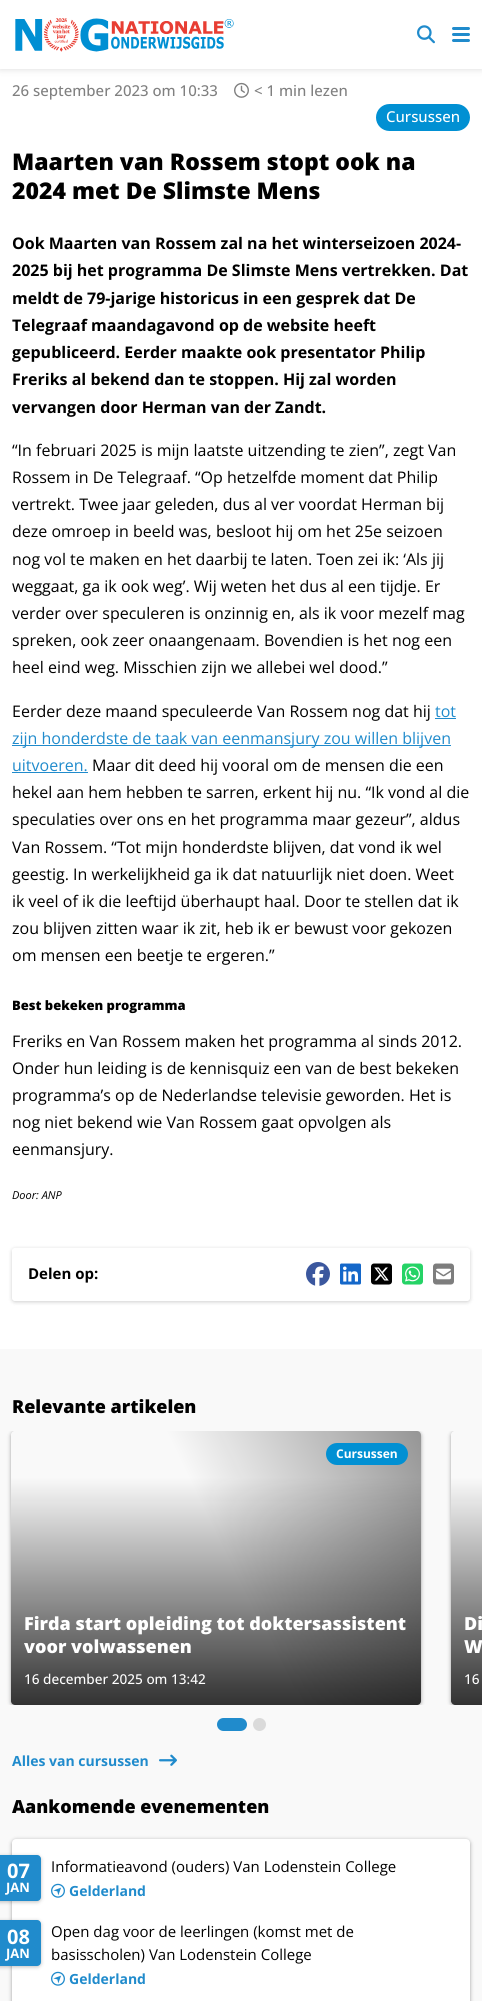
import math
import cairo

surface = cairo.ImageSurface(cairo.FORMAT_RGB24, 482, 2001)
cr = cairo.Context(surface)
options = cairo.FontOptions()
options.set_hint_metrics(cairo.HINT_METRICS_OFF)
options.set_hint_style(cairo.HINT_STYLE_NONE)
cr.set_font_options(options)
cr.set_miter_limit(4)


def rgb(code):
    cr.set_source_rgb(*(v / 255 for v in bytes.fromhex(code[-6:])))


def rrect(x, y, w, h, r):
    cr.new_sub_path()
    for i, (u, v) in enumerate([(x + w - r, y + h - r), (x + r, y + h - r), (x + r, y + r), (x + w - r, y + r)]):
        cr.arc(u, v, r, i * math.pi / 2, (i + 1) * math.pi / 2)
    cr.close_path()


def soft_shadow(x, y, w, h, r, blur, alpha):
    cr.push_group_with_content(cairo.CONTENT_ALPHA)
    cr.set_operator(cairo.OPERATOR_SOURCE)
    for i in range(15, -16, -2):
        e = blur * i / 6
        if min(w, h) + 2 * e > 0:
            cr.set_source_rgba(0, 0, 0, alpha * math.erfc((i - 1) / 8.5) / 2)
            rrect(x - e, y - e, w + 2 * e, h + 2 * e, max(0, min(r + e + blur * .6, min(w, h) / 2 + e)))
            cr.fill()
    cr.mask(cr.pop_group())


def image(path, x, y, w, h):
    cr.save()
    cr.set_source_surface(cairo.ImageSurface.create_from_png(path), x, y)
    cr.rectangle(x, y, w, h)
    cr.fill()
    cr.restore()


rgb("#ffffff")
cr.paint()
rgb("#3d3d3d")
soft_shadow(0, 0, 482, 69, 0, 3.5, 0.2)
rgb("#ffffff")
cr.rectangle(0, 0, 482, 69)
cr.fill()
image("img/1.png", 15, 18, 219, 34)
image("img/2.png", 417, 25, 18, 19)
rgb("#208bcc")
rrect(452, 27, 18, 3, 1.5)
cr.fill()
rrect(452, 33, 18, 3, 1.5)
cr.fill()
rrect(452, 39, 18, 3, 1.5)
cr.fill()
image("img/3.png", 234, 82, 15, 16)
rgb("#0190d3")
rrect(376, 104, 94, 27, 13.5)
cr.fill()
for x, y, w, h, color in [
    (435, 718, 21, 1, "#208bcc"),
    (12, 745, 439, 1, "#208bcc"),
    (12, 772, 76, 1, "#208bcc"),
]:
    rgb(color)
    cr.rectangle(x, y, w, h)
    cr.fill()
cr.save()
cr.set_fill_rule(cairo.FILL_RULE_EVEN_ODD)
cr.new_path()
cr.move_to(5, 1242)
cr.line_to(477, 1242)
cr.line_to(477, 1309)
cr.line_to(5, 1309)
cr.close_path()
cr.move_to(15, 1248)
cr.line_to(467, 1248)
cr.curve_to(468.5, 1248, 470, 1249.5, 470, 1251)
cr.line_to(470, 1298)
cr.curve_to(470, 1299.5, 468.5, 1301, 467, 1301)
cr.line_to(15, 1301)
cr.curve_to(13.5, 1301, 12, 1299.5, 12, 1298)
cr.line_to(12, 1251)
cr.curve_to(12, 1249.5, 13.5, 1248, 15, 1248)
cr.close_path()
cr.clip()
rgb("#000000")
soft_shadow(12, 1249, 458, 53, 3, 2, 0.2)
cr.restore()
image("img/4.png", 306, 1262, 24, 24)
image("img/5.png", 340, 1263, 21, 22)
image("img/6.png", 371, 1263, 21, 22)
image("img/7.png", 402, 1263, 21, 22)
image("img/8.png", 433, 1263, 21, 22)
rgb("#f9f9f9")
cr.rectangle(0, 1349, 482, 652)
cr.fill()
cr.save()
cr.rectangle(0, 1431, 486, 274)
cr.clip()
cr.set_fill_rule(cairo.FILL_RULE_EVEN_ODD)
cr.new_path()
cr.move_to(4, 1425)
cr.line_to(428, 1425)
cr.line_to(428, 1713)
cr.line_to(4, 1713)
cr.close_path()
cr.move_to(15, 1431)
cr.line_to(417, 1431)
cr.curve_to(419, 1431, 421, 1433, 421, 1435)
cr.line_to(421, 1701)
cr.curve_to(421, 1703, 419, 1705, 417, 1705)
cr.line_to(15, 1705)
cr.curve_to(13, 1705, 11, 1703, 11, 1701)
cr.line_to(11, 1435)
cr.curve_to(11, 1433, 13, 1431, 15, 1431)
cr.close_path()
cr.clip()
rgb("#000000")
soft_shadow(11, 1432, 410, 274, 4, 2, 0.36)
cr.restore()
gradient = cairo.LinearGradient(216, 1705, 216, 1431)
gradient.add_color_stop_rgba(0, 0, 0, 0, 0.8)
gradient.add_color_stop_rgba(0.83, 0, 0, 0, 0)
cr.set_source(gradient)
rrect(11, 1431, 410, 274, 4)
cr.fill()
gradient = cairo.LinearGradient(436, 1461, -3.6, 1675)
gradient.add_color_stop_rgba(0, 0, 0, 0, 0.4)
gradient.add_color_stop_rgba(0.47, 0, 0, 0, 0)
cr.set_source(gradient)
rrect(11, 1431, 410, 274, 4)
cr.fill()
rgb("#0190d3")
rrect(326, 1443, 82, 22, 11)
cr.fill()
cr.save()
cr.rectangle(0, 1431, 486, 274)
cr.clip()
cr.set_fill_rule(cairo.FILL_RULE_EVEN_ODD)
cr.new_path()
cr.move_to(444, 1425)
cr.line_to(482, 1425)
cr.line_to(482, 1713)
cr.line_to(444, 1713)
cr.close_path()
cr.move_to(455, 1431)
cr.line_to(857, 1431)
cr.curve_to(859, 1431, 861, 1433, 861, 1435)
cr.line_to(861, 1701)
cr.curve_to(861, 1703, 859, 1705, 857, 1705)
cr.line_to(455, 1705)
cr.curve_to(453, 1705, 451, 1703, 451, 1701)
cr.line_to(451, 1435)
cr.curve_to(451, 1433, 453, 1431, 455, 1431)
cr.close_path()
cr.clip()
rgb("#000000")
soft_shadow(451, 1432, 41, 274, 4, 2, 0.36)
cr.restore()
gradient = cairo.LinearGradient(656, 1705, 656, 1431)
gradient.add_color_stop_rgba(0, 0, 0, 0, 0.8)
gradient.add_color_stop_rgba(0.83, 0, 0, 0, 0)
cr.set_source(gradient)
cr.new_path()
cr.move_to(455, 1431)
cr.line_to(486, 1431)
cr.line_to(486, 1705)
cr.line_to(455, 1705)
cr.curve_to(453, 1705, 451, 1703, 451, 1701)
cr.line_to(451, 1435)
cr.curve_to(451, 1433, 453, 1431, 455, 1431)
cr.close_path()
cr.fill()
rgb("#208bcc")
rrect(217, 1718, 30, 13, 6.5)
cr.fill()
rgb("#dadada")
cr.arc(259.5, 1724.5, 6.5, 0, 2 * math.pi)
cr.fill()
image("img/9.png", 159, 1754, 18, 12)
rgb("#000000")
soft_shadow(12, 1840, 458, 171, 4, 2, 0.36)
rgb("#ffffff")
rrect(12, 1839, 458, 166, 4)
cr.fill()
rgb("#000000")
soft_shadow(-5, 1856, 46, 46, 4, 2, 0.25)
rgb("#208bcc")
rrect(-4, 1855, 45, 46, 4)
cr.fill()
image("img/10.png", 51, 1883, 14, 15)
rgb("#000000")
soft_shadow(-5, 1921, 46, 46, 4, 2, 0.25)
rgb("#208bcc")
rrect(-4, 1920, 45, 46, 4)
cr.fill()
image("img/10.png", 51, 1971, 14, 15)
cr.select_font_face("Open Sans Medium")
cr.set_font_size(15)
rgb("#808080")
cr.move_to(12, 96)
cr.show_text("26 september 2023 om 10:33")
cr.move_to(254, 96)
cr.show_text("< 1 min lezen")
rgb("#ffffff")
cr.move_to(386, 122)
cr.show_text("Cursussen")
cr.select_font_face("Open Sans ExtraBold")
cr.set_font_size(23)
rgb("#000000")
cr.move_to(12, 170)
cr.show_text("Maarten van Rossem stopt ook na")
cr.move_to(12, 199)
cr.show_text("2024 met De Slimste Mens")
cr.select_font_face("Open Sans", cairo.FONT_SLANT_NORMAL, cairo.FONT_WEIGHT_BOLD)
cr.set_font_size(16)
for x, y, s in [
    (12, 249, "Ook Maarten van Rossem zal na het winterseizoen 2024-"),
    (12, 276, "2025 bij het programma De Slimste Mens vertrekken. Dat"),
    (12, 304, "meldt de 79-jarige historicus in een gesprek dat De"),
    (12, 331, "Telegraaf maandagavond op de website heeft"),
    (12, 358, "gepubliceerd. Eerder maakte ook presentator Philip"),
    (12, 385, "Freriks al bekend dan te stoppen. Hij zal worden"),
    (12, 413, "vervangen door Herman van der Zandt."),
]:
    cr.move_to(x, y)
    cr.show_text(s)
cr.select_font_face("Open Sans")
for x, y, s in [
    (12, 456, "“In februari 2025 is mijn laatste uitzending te zien”, zegt Van"),
    (12, 483, "Rossem in De Telegraaf. “Op hetzelfde moment dat Philip"),
    (12, 510, "vertrekt. Twee jaar geleden, dus al ver voordat Herman bij"),
    (12, 537, "deze omroep in beeld was, besloot hij om het 25e seizoen"),
    (12, 565, "nog vol te maken en het daarbij te laten. Toen zei ik: ‘Als jij"),
    (12, 592, "weggaat, ga ik ook weg’. Wij weten het dus al een tijdje. Er"),
    (12, 619, "verder over speculeren is onzinnig en, als ik voor mezelf mag"),
    (12, 646, "spreken, ook zeer onaangenaam. Bovendien is het nog een"),
    (12, 673, "heel eind weg. Misschien zijn we allebei wel dood.”"),
    (12, 717, "Eerder deze maand speculeerde Van Rossem nog dat hij"),
]:
    cr.move_to(x, y)
    cr.show_text(s)
rgb("#208bcc")
for x, y, s in [
    (435, 717, "tot"),
    (12, 744, "zijn honderdste de taak van eenmansjury zou willen blijven"),
    (12, 771, "uitvoeren."),
]:
    cr.move_to(x, y)
    cr.show_text(s)
rgb("#000000")
for x, y, s in [
    (92, 771, "Maar dit deed hij vooral om de mensen die een"),
    (12, 798, "hekel aan hem hebben te sarren, erkent hij nu. “Ik vond al die"),
    (12, 825, "speculaties over ons en het programma maar gezeur”, aldus"),
    (12, 853, "Van Rossem. “Tot mijn honderdste blijven, dat vond ik wel"),
    (12, 880, "geestig. In werkelijkheid ga ik dat natuurlijk niet doen. Weet"),
    (12, 907, "ik veel of ik die leeftijd überhaupt haal. Door te stellen dat ik"),
    (12, 934, "zou blijven zitten waar ik zit, heb ik er bewust voor gekozen"),
    (12, 961, "om mensen een beetje te ergeren.”"),
]:
    cr.move_to(x, y)
    cr.show_text(s)
cr.select_font_face("Open Sans ExtraBold")
cr.set_font_size(13)
cr.move_to(12, 1010)
cr.show_text("Best bekeken programma")
cr.select_font_face("Open Sans")
cr.set_font_size(16)
for x, y, s in [
    (12, 1047, "Freriks en Van Rossem maken het programma al sinds 2012."),
    (12, 1074, "Onder hun leiding is de kennisquiz een van de best bekeken"),
    (12, 1101, "programma’s op de Nederlandse televisie geworden. Het is"),
    (12, 1128, "nog niet bekend wie Van Rossem gaat opvolgen als"),
    (12, 1155, "eenmansjury."),
]:
    cr.move_to(x, y)
    cr.show_text(s)
cr.select_font_face("Open Sans", cairo.FONT_SLANT_ITALIC)
cr.set_font_size(11)
cr.move_to(12, 1199)
cr.show_text("Door: ANP")
cr.select_font_face("Open Sans", cairo.FONT_SLANT_NORMAL, cairo.FONT_WEIGHT_BOLD)
cr.set_font_size(15)
cr.move_to(28, 1279)
cr.show_text("Delen op:")
cr.select_font_face("Open Sans ExtraBold")
cr.set_font_size(18)
cr.move_to(12, 1413)
cr.show_text("Relevante artikelen")
cr.select_font_face("Open Sans", cairo.FONT_SLANT_NORMAL, cairo.FONT_WEIGHT_BOLD)
cr.set_font_size(12)
rgb("#ffffff")
cr.move_to(336, 1458)
cr.show_text("Cursussen")
cr.select_font_face("Open Sans ExtraBold")
cr.set_font_size(18)
cr.move_to(24, 1630)
cr.show_text("Firda start opleiding tot doktersassistent")
cr.move_to(24, 1653)
cr.show_text("voor volwassenen")
cr.select_font_face("Open Sans Medium")
cr.set_font_size(13.6)
cr.move_to(24, 1684)
cr.show_text("16 december 2025 om 13:42")
cr.select_font_face("Open Sans ExtraBold")
cr.set_font_size(18)
cr.move_to(464, 1630)
cr.show_text("Di")
cr.move_to(464, 1653)
cr.show_text("W")
cr.select_font_face("Open Sans Medium")
cr.set_font_size(13.6)
cr.move_to(464, 1684)
cr.show_text("16")
cr.select_font_face("Open Sans", cairo.FONT_SLANT_NORMAL, cairo.FONT_WEIGHT_BOLD)
cr.set_font_size(14)
rgb("#208bcc")
cr.move_to(12, 1766)
cr.show_text("Alles van cursussen")
cr.select_font_face("Open Sans ExtraBold")
cr.set_font_size(18)
rgb("#000000")
cr.move_to(12, 1813)
cr.show_text("Aankomende evenementen")
cr.select_font_face("Open Sans", cairo.FONT_SLANT_NORMAL, cairo.FONT_WEIGHT_BOLD)
cr.set_font_size(20)
rgb("#ffffff")
cr.move_to(7, 1878)
cr.show_text("07")
cr.set_font_size(13)
cr.move_to(6, 1892)
cr.show_text("JAN")
cr.select_font_face("Open Sans")
cr.set_font_size(15)
rgb("#000000")
cr.move_to(51, 1872)
cr.show_text("Informatieavond (ouders) Van Lodenstein College")
cr.select_font_face("Open Sans", cairo.FONT_SLANT_NORMAL, cairo.FONT_WEIGHT_BOLD)
cr.set_font_size(14)
rgb("#208bcc")
cr.move_to(69, 1896)
cr.show_text("Gelderland")
cr.set_font_size(20)
rgb("#ffffff")
cr.move_to(7, 1944)
cr.show_text("08")
cr.set_font_size(13)
cr.move_to(6, 1958)
cr.show_text("JAN")
cr.select_font_face("Open Sans")
cr.set_font_size(15)
rgb("#000000")
cr.move_to(51, 1937)
cr.show_text("Open dag voor de leerlingen (komst met de")
cr.move_to(51, 1960)
cr.show_text("basisscholen) Van Lodenstein College")
cr.select_font_face("Open Sans", cairo.FONT_SLANT_NORMAL, cairo.FONT_WEIGHT_BOLD)
cr.set_font_size(14)
rgb("#208bcc")
cr.move_to(69, 1984)
cr.show_text("Gelderland")
surface.write_to_png("page.png")
